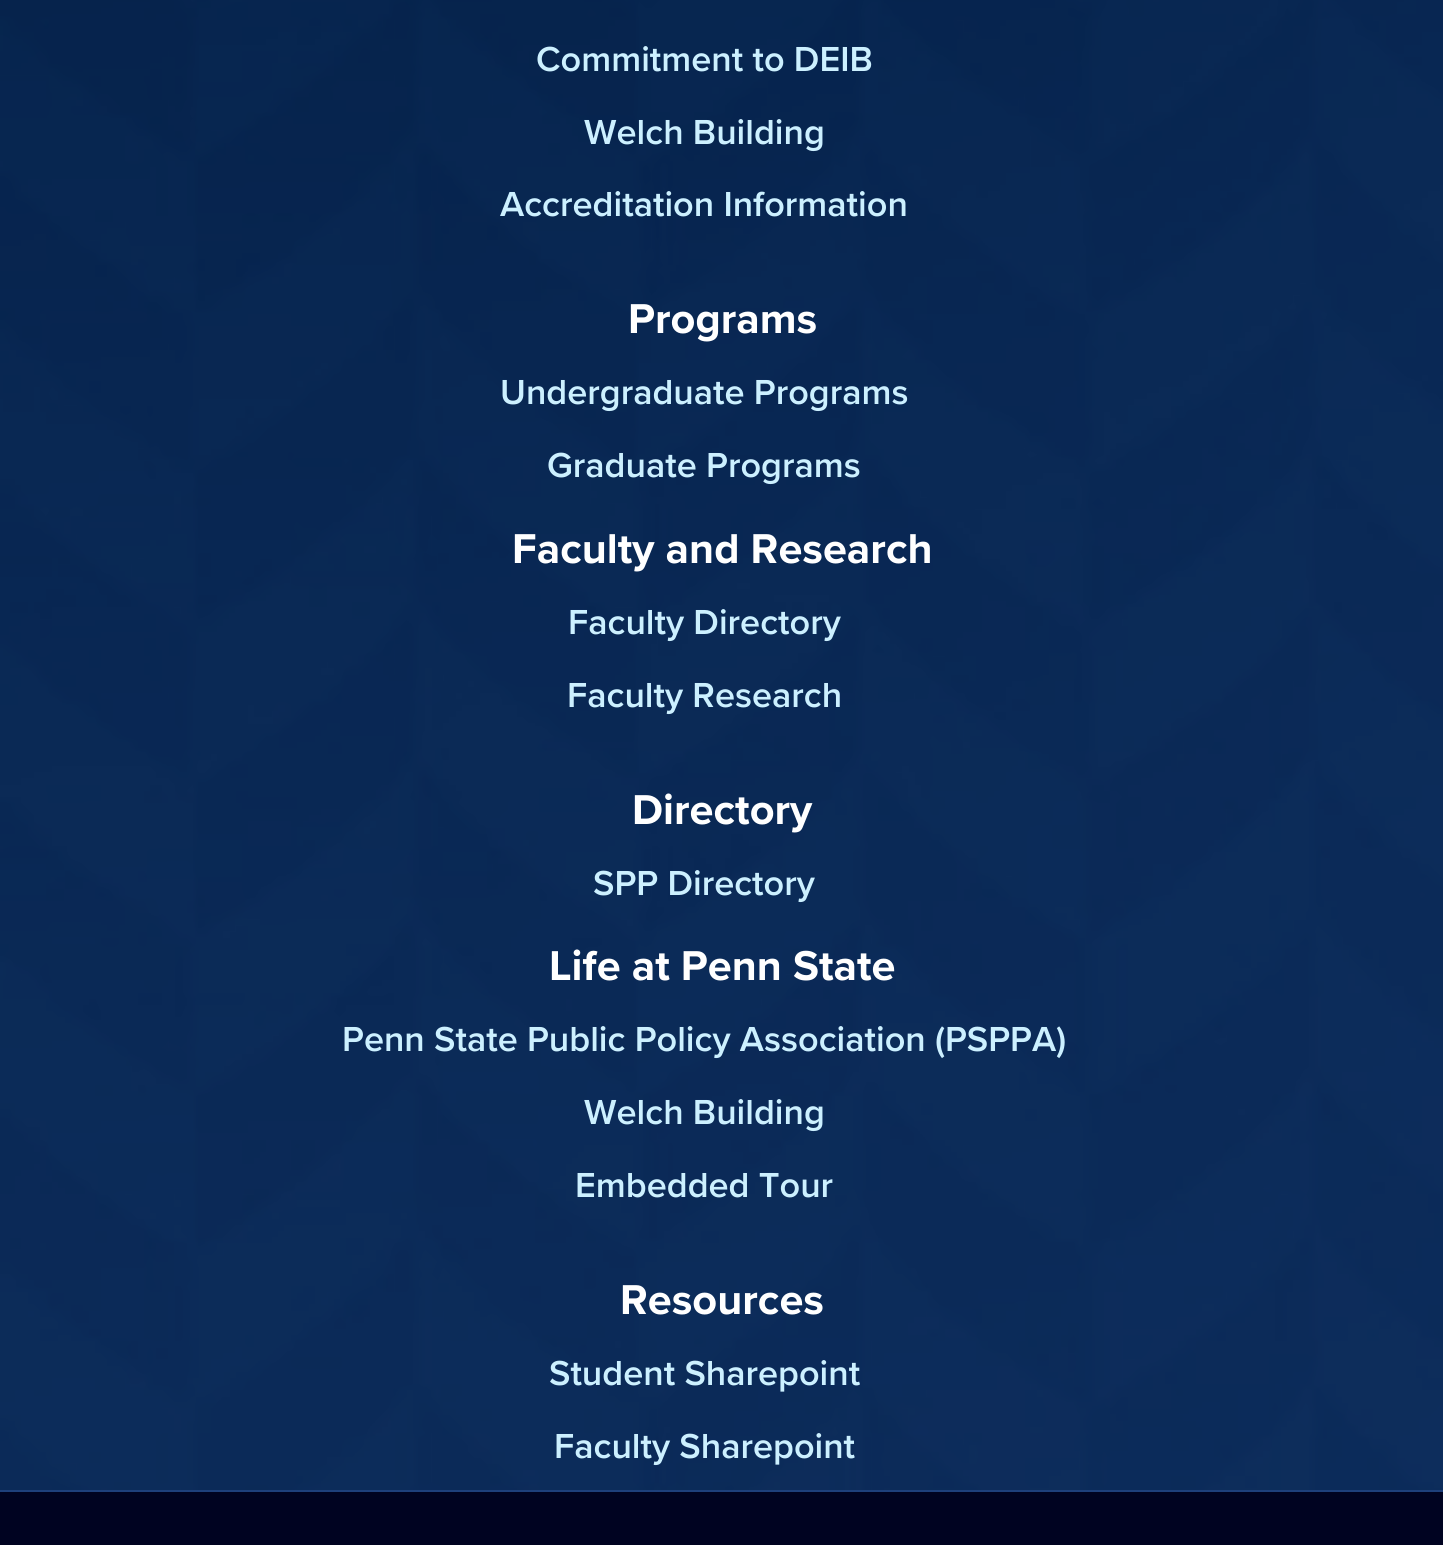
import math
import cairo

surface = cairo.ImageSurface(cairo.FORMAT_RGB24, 1443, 1545)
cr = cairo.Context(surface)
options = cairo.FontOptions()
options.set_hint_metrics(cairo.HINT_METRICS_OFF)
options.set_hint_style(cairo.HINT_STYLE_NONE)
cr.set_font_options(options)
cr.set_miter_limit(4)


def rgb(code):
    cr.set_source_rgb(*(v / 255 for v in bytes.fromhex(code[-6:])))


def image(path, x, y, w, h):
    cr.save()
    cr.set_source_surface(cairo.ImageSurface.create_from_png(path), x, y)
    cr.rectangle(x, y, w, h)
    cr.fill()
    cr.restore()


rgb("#ffffff")
cr.paint()
image("img/1.png", 0, 0, 1443, 1490)
rgb("#000321")
cr.rectangle(0, 1492, 1443, 53)
cr.fill()
rgb("#1e407c")
cr.rectangle(0, 1490, 1443, 2)
cr.fill()
cr.select_font_face("Proxima Nova SemiBold")
cr.set_font_size(36)
rgb("#ccf0ff")
for x, y, s in [
    (536, 71, "Commitment to DEIB"),
    (584, 144, "Welch Building"),
    (500, 216, "Accreditation Information"),
]:
    cr.move_to(x, y)
    cr.show_text(s)
cr.select_font_face("Proxima Nova", cairo.FONT_SLANT_NORMAL, cairo.FONT_WEIGHT_BOLD)
cr.set_font_size(43.25)
rgb("#ffffff")
cr.move_to(628, 333)
cr.show_text("Programs")
cr.select_font_face("Proxima Nova SemiBold")
cr.set_font_size(36)
rgb("#ccf0ff")
cr.move_to(500, 404)
cr.show_text("Undergraduate Programs")
cr.move_to(547, 477)
cr.show_text("Graduate Programs")
cr.select_font_face("Proxima Nova", cairo.FONT_SLANT_NORMAL, cairo.FONT_WEIGHT_BOLD)
cr.set_font_size(43.25)
rgb("#ffffff")
cr.move_to(512, 563)
cr.show_text("Faculty and Research")
cr.select_font_face("Proxima Nova SemiBold")
cr.set_font_size(36)
rgb("#ccf0ff")
cr.move_to(568, 634)
cr.show_text("Faculty Directory")
cr.move_to(567, 707)
cr.show_text("Faculty Research")
cr.select_font_face("Proxima Nova", cairo.FONT_SLANT_NORMAL, cairo.FONT_WEIGHT_BOLD)
cr.set_font_size(43.25)
rgb("#ffffff")
cr.move_to(632, 824)
cr.show_text("Directory")
cr.select_font_face("Proxima Nova SemiBold")
cr.set_font_size(36)
rgb("#ccf0ff")
cr.move_to(593, 895)
cr.show_text("SPP Directory")
cr.select_font_face("Proxima Nova", cairo.FONT_SLANT_NORMAL, cairo.FONT_WEIGHT_BOLD)
cr.set_font_size(43.25)
rgb("#ffffff")
cr.move_to(549, 980)
cr.show_text("Life at Penn State")
cr.select_font_face("Proxima Nova SemiBold")
cr.set_font_size(36)
rgb("#ccf0ff")
for x, y, s in [
    (342, 1051, "Penn State Public Policy Association (PSPPA)"),
    (584, 1124, "Welch Building"),
    (575, 1197, "Embedded Tour"),
]:
    cr.move_to(x, y)
    cr.show_text(s)
cr.select_font_face("Proxima Nova", cairo.FONT_SLANT_NORMAL, cairo.FONT_WEIGHT_BOLD)
cr.set_font_size(43.25)
rgb("#ffffff")
cr.move_to(620, 1314)
cr.show_text("Resources")
cr.select_font_face("Proxima Nova SemiBold")
cr.set_font_size(36)
rgb("#ccf0ff")
cr.move_to(549, 1385)
cr.show_text("Student Sharepoint")
cr.move_to(554, 1458)
cr.show_text("Faculty Sharepoint")
surface.write_to_png("page.png")
